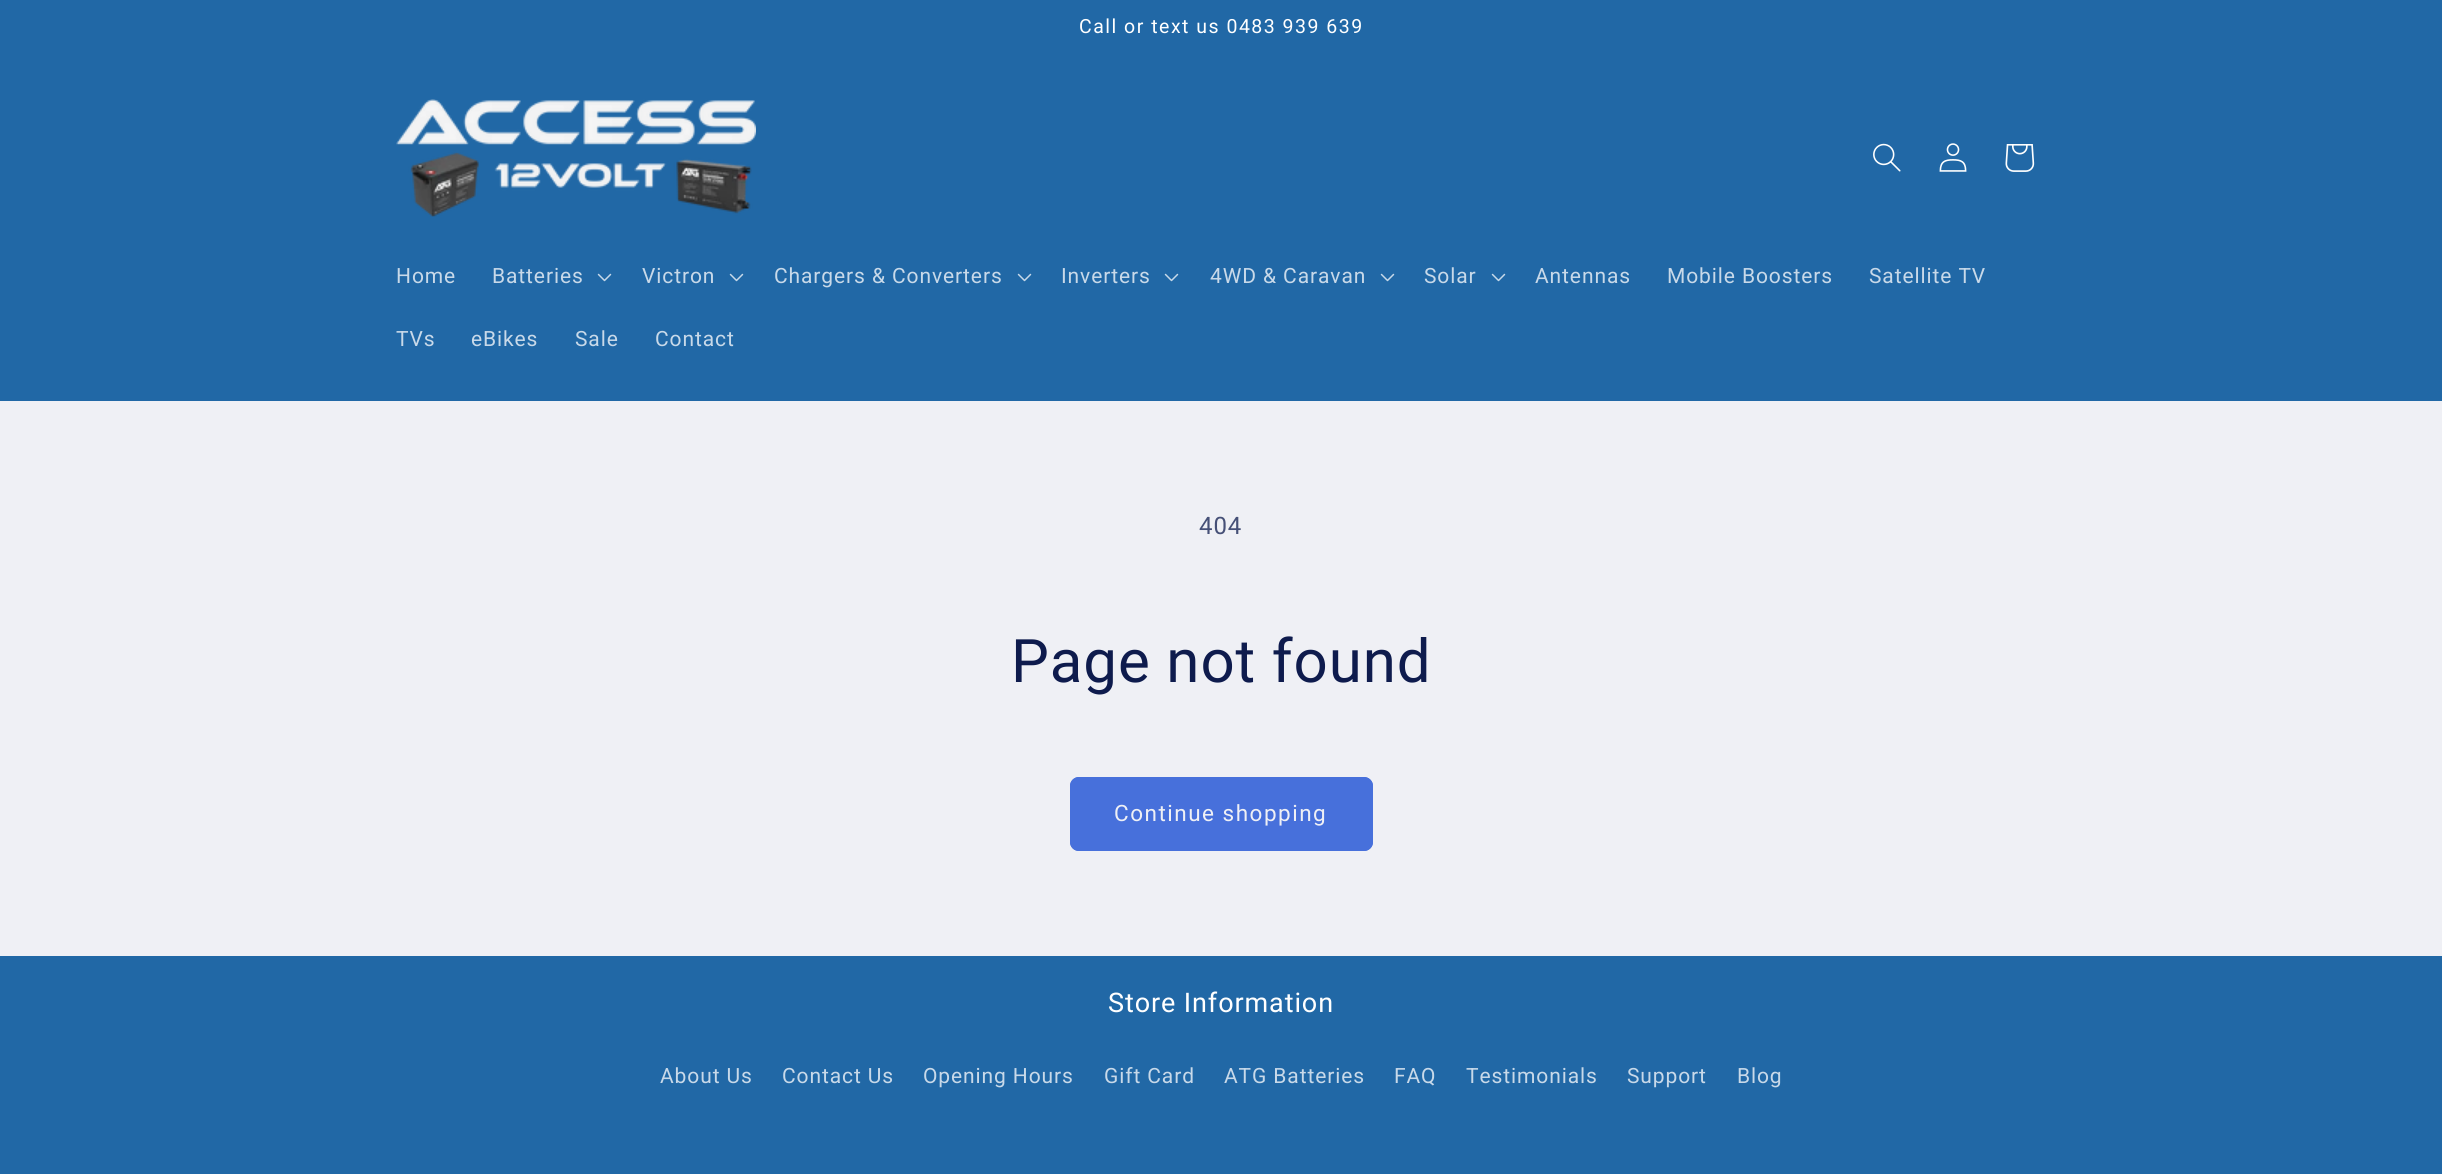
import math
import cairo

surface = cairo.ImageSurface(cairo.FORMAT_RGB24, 2442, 1174)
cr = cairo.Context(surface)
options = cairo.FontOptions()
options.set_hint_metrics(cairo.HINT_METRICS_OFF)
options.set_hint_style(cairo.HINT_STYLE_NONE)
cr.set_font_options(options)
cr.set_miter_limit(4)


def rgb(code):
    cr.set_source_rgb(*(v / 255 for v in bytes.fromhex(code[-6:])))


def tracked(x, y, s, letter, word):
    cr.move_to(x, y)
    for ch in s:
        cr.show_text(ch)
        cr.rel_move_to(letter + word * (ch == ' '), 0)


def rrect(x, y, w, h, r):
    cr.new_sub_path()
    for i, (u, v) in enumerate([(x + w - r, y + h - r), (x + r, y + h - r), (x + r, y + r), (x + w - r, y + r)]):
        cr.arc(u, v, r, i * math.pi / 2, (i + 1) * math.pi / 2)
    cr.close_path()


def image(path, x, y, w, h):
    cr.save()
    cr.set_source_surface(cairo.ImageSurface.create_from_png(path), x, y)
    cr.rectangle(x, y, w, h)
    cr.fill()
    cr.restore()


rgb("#eff0f5")
cr.paint()
rgb("#2168a6")
cr.rectangle(0, 0, 2442, 401)
cr.fill()
image("img/1.png", 396, 99, 360, 118)
image("img/2.png", 1873, 143, 28, 29)
image("img/3.png", 1939, 143, 28, 29)
image("img/4.png", 2005, 144, 30, 28)
image("img/5.png", 597, 273, 15, 9)
image("img/5.png", 729, 273, 15, 9)
image("img/5.png", 1017, 273, 15, 9)
image("img/5.png", 1164, 273, 15, 9)
image("img/5.png", 1380, 273, 15, 9)
image("img/5.png", 1491, 273, 15, 9)
rgb("#4770db")
rrect(1070, 777, 303, 74, 9)
cr.fill()
rrect(1071.5, 778.5, 300, 71, 7.5)
cr.set_line_width(3)
cr.stroke()
rgb("#2168a6")
cr.rectangle(0, 956, 2442, 218)
cr.fill()
cr.select_font_face("Roboto")
cr.set_font_size(19.5)
rgb("#ffffff")
tracked(1079, 33, "Call or text us 0483 939 639", 1.5, 0)
cr.set_font_size(21)
rgb("#c8d9e9")
for x, y, s in [
    (396, 283, "Home"),
    (492, 283, "Batteries"),
    (642, 283, "Victron"),
    (774, 283, "Chargers & Converters"),
    (1061, 283, "Inverters"),
    (1210, 283, "4WD & Caravan"),
    (1424, 283, "Solar"),
    (1535, 283, "Antennas"),
    (1667, 283, "Mobile Boosters"),
    (1869, 283, "Satellite TV"),
    (396, 346, "TVs"),
    (471, 346, "eBikes"),
    (575, 346, "Sale"),
    (655, 346, "Contact"),
]:
    tracked(x, y, s, 0.9, 0)
cr.set_font_size(24)
rgb("#465077")
tracked(1199, 534, "404", 0.9, 0)
cr.set_font_size(60)
rgb("#0e1b4d")
tracked(1011, 682, "Page not found", 0.9, 0)
cr.set_font_size(22.5)
rgb("#eff0f5")
tracked(1114, 821, "Continue shopping", 1.5, 0)
cr.set_font_size(27)
rgb("#ffffff")
tracked(1108, 1012, "Store Information", 0.9, 0)
cr.set_font_size(21)
rgb("#c8d9e9")
for x, y, s in [
    (660, 1083, "About Us"),
    (782, 1083, "Contact Us"),
    (923, 1083, "Opening Hours"),
    (1104, 1083, "Gift Card"),
    (1224, 1083, "ATG Batteries"),
    (1394, 1083, "FAQ"),
    (1466, 1083, "Testimonials"),
    (1627, 1083, "Support"),
    (1737, 1083, "Blog"),
]:
    tracked(x, y, s, 0.9, 0)
surface.write_to_png("page.png")
